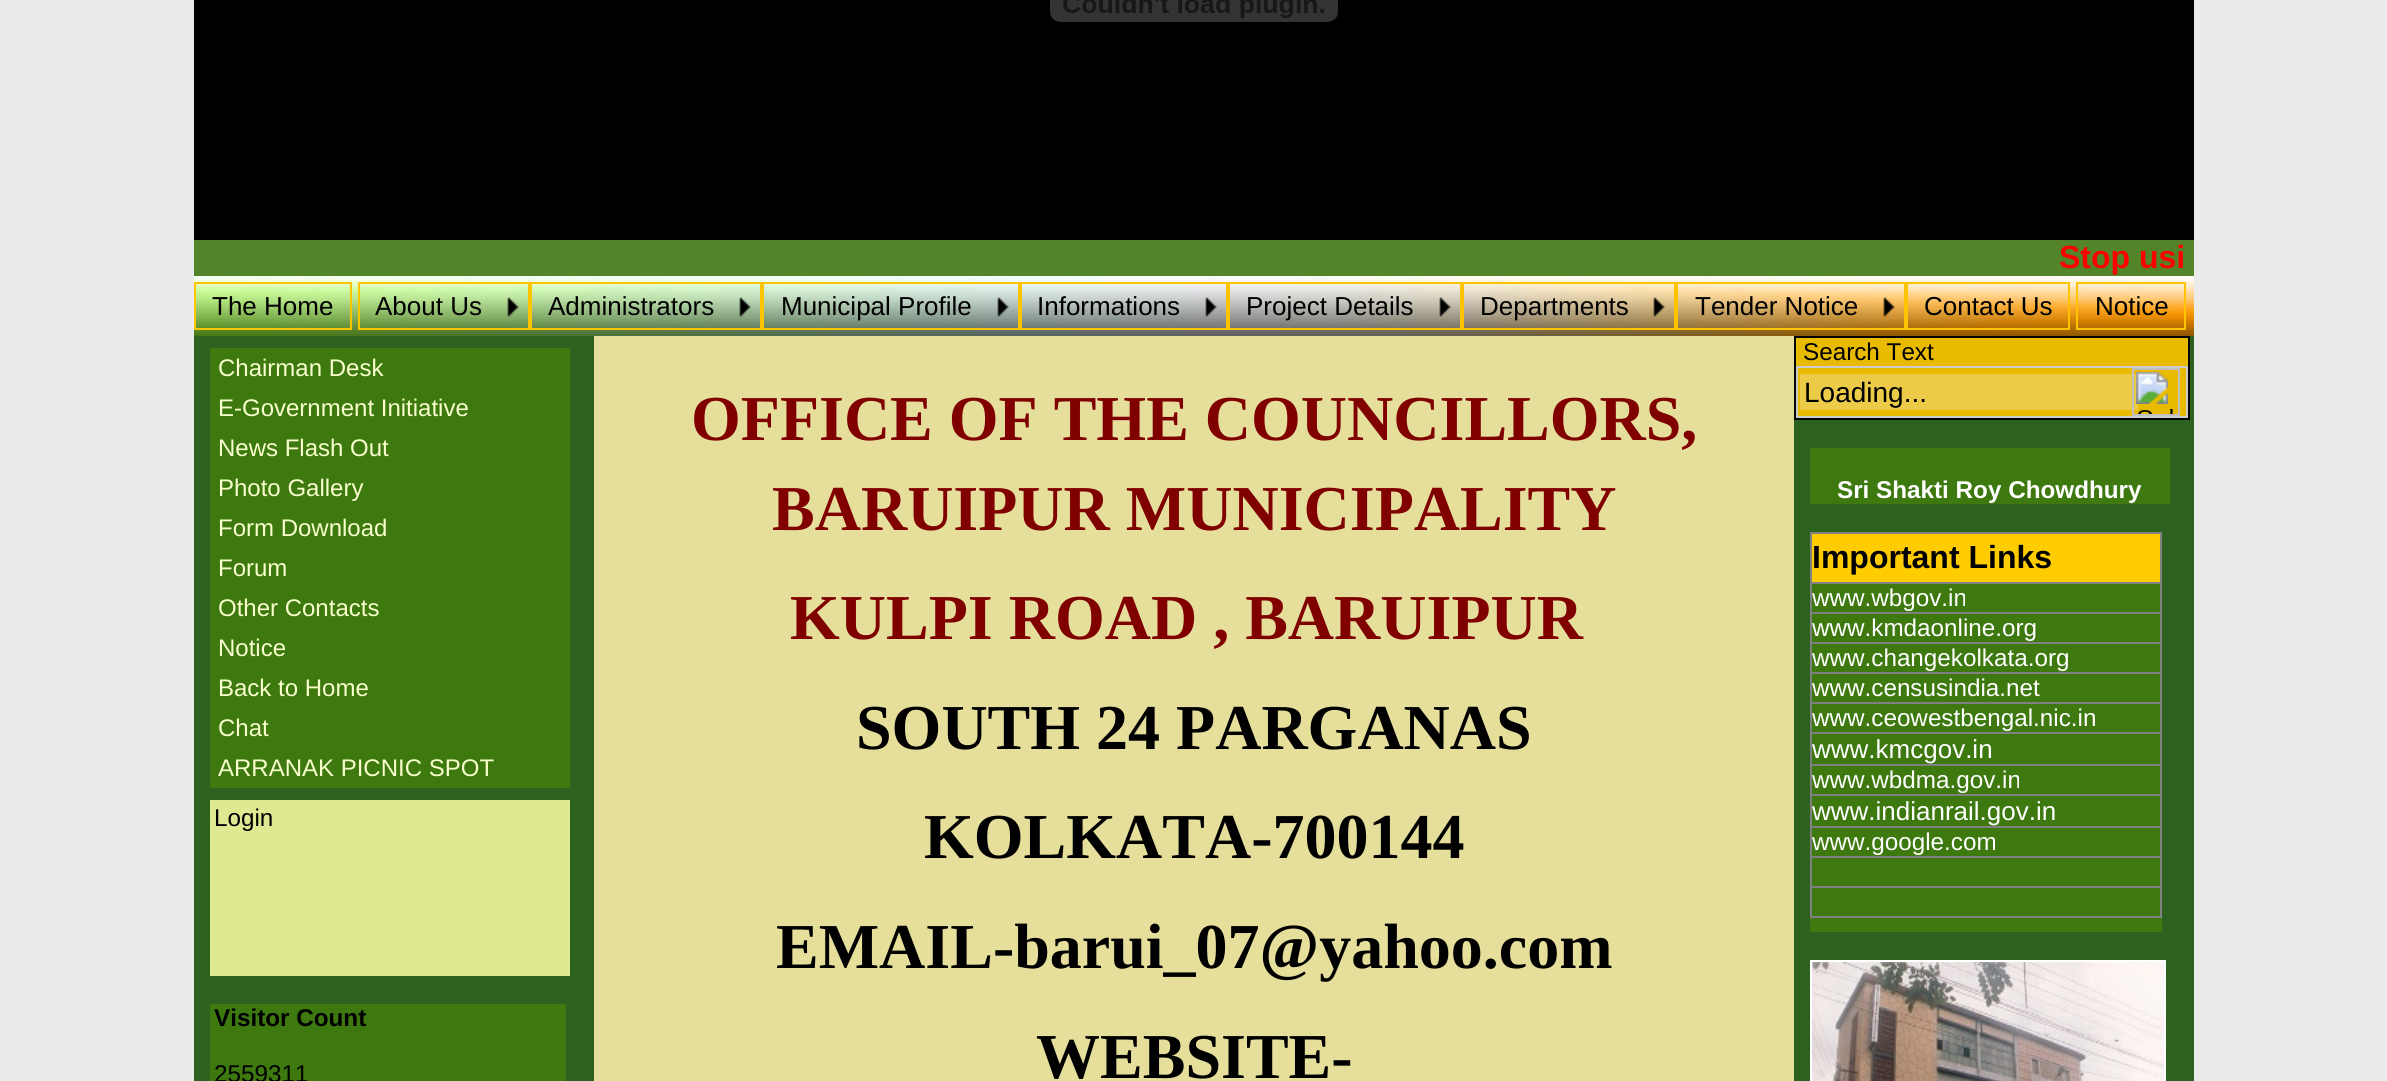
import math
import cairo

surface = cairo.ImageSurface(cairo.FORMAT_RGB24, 2387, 1081)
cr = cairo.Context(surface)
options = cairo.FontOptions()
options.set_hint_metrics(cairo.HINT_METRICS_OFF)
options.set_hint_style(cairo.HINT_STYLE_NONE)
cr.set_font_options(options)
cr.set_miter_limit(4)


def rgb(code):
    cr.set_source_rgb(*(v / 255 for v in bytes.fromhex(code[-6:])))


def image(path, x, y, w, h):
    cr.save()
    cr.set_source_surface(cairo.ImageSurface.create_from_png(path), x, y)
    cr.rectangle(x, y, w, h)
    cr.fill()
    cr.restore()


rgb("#ebebeb")
cr.paint()
rgb("#548429")
cr.rectangle(194, 240, 2000, 36)
cr.fill()
rgb("#000000")
cr.rectangle(194, 0, 2000, 240)
cr.fill()
image("img/1.png", 1050, 0, 288, 22)
image("img/2.png", 194, 276, 2000, 60)
for x, y, w, h, color in [
    (194, 282, 158, 2, "#ffc400"),
    (350, 282, 2, 48, "#ffc400"),
    (194, 328, 158, 2, "#ffc400"),
    (194, 282, 2, 48, "#ffc400"),
    (358, 282, 1712, 2, "#ffc400"),
    (528, 282, 2, 48, "#ffc400"),
    (358, 328, 172, 2, "#ffc400"),
    (358, 282, 2, 48, "#ffc400"),
]:
    rgb(color)
    cr.rectangle(x, y, w, h)
    cr.fill()
image("img/3.png", 507, 297, 12, 20)
for x, y, w, h, color in [
    (760, 282, 2, 48, "#ffc400"),
    (530, 328, 232, 2, "#ffc400"),
    (530, 282, 2, 48, "#ffc400"),
]:
    rgb(color)
    cr.rectangle(x, y, w, h)
    cr.fill()
image("img/4.png", 739, 297, 12, 20)
for x, y, w, h, color in [
    (1018, 282, 2, 48, "#ffc400"),
    (762, 328, 258, 2, "#ffc400"),
    (762, 282, 2, 48, "#ffc400"),
]:
    rgb(color)
    cr.rectangle(x, y, w, h)
    cr.fill()
image("img/5.png", 997, 297, 12, 20)
for x, y, w, h, color in [
    (1226, 282, 2, 48, "#ffc400"),
    (1020, 328, 208, 2, "#ffc400"),
    (1020, 282, 2, 48, "#ffc400"),
]:
    rgb(color)
    cr.rectangle(x, y, w, h)
    cr.fill()
image("img/6.png", 1205, 297, 12, 20)
for x, y, w, h, color in [
    (1460, 282, 2, 48, "#ffc400"),
    (1228, 328, 234, 2, "#ffc400"),
    (1228, 282, 2, 48, "#ffc400"),
]:
    rgb(color)
    cr.rectangle(x, y, w, h)
    cr.fill()
image("img/7.png", 1439, 297, 12, 20)
for x, y, w, h, color in [
    (1674, 282, 2, 48, "#ffc400"),
    (1462, 328, 214, 2, "#ffc400"),
    (1462, 282, 2, 48, "#ffc400"),
]:
    rgb(color)
    cr.rectangle(x, y, w, h)
    cr.fill()
image("img/8.png", 1653, 297, 12, 20)
for x, y, w, h, color in [
    (1904, 282, 2, 48, "#ffc400"),
    (1676, 328, 230, 2, "#ffc400"),
    (1676, 282, 2, 48, "#ffc400"),
]:
    rgb(color)
    cr.rectangle(x, y, w, h)
    cr.fill()
image("img/9.png", 1883, 297, 12, 20)
for x, y, w, h, color in [
    (2068, 282, 2, 48, "#ffc400"),
    (1906, 328, 164, 2, "#ffc400"),
    (1906, 282, 2, 48, "#ffc400"),
    (2076, 282, 110, 2, "#ffc400"),
    (2184, 282, 2, 48, "#ffc400"),
    (2076, 328, 110, 2, "#ffc400"),
    (2076, 282, 2, 48, "#ffc400"),
    (194, 336, 400, 745, "#2c611f"),
    (210, 348, 360, 440, "#3d790f"),
    (210, 800, 360, 176, "#dee992"),
    (210, 1004, 356, 77, "#3d790f"),
    (594, 336, 1200, 745, "#e6df9c"),
    (1794, 336, 400, 745, "#2c611f"),
    (1796, 338, 392, 78, "#e9bb00"),
]:
    rgb(color)
    cr.rectangle(x, y, w, h)
    cr.fill()
cr.rectangle(1795, 337, 394, 82)
rgb("#000000")
cr.stroke()
for x, y, w, h, color in [
    (1796, 366, 392, 2, "#cccccc"),
    (2186, 366, 2, 52, "#cccccc"),
    (1796, 416, 392, 2, "#cccccc"),
    (1800, 374, 338, 36, "#ebcb48"),
]:
    rgb(color)
    cr.rectangle(x, y, w, h)
    cr.fill()
image("img/10.png", 2132, 368, 48, 48)
for x, y, w, h, color in [
    (1796, 366, 2, 52, "#cccccc"),
    (1810, 448, 360, 56, "#3d790f"),
    (1810, 584, 352, 348, "#3d790f"),
    (1810, 532, 352, 2, "#808080"),
    (2160, 532, 2, 386, "#808080"),
    (1810, 916, 352, 2, "#808080"),
    (1810, 532, 2, 386, "#808080"),
    (1812, 534, 348, 48, "#ffcc00"),
    (1810, 582, 352, 2, "#808080"),
    (1810, 612, 352, 2, "#808080"),
    (1810, 642, 352, 2, "#808080"),
    (1810, 672, 352, 2, "#808080"),
    (1810, 702, 352, 2, "#808080"),
    (1810, 732, 352, 2, "#808080"),
    (1810, 764, 352, 2, "#808080"),
    (1810, 794, 352, 2, "#808080"),
    (1810, 826, 352, 2, "#808080"),
    (1810, 856, 352, 2, "#808080"),
    (1810, 886, 352, 2, "#808080"),
]:
    rgb(color)
    cr.rectangle(x, y, w, h)
    cr.fill()
cr.rectangle(1811, 961, 354, 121)
rgb("#ffffff")
cr.stroke()
image("img/11.png", 1812, 962, 352, 119)
cr.select_font_face("Liberation Sans", cairo.FONT_SLANT_NORMAL, cairo.FONT_WEIGHT_BOLD)
cr.set_font_size(32)
rgb("#ff0000")
cr.move_to(2059, 268)
cr.show_text("Stop usi")
cr.select_font_face("Liberation Sans")
cr.set_font_size(26)
rgb("#000000")
for x, y, s in [
    (212, 315, "The Home"),
    (375, 315, "About Us"),
    (548, 315, "Administrators"),
    (781, 315, "Municipal Profile"),
    (1037, 315, "Informations"),
    (1246, 315, "Project Details"),
    (1480, 315, "Departments"),
    (1695, 315, "Tender Notice"),
    (1924, 315, "Contact Us"),
    (2095, 315, "Notice"),
]:
    cr.move_to(x, y)
    cr.show_text(s)
cr.set_font_size(24)
rgb("#f9ffcd")
for x, y, s in [
    (218, 376, "Chairman Desk"),
    (218, 416, "E-Government Initiative"),
    (218, 456, "News Flash Out"),
    (218, 496, "Photo Gallery"),
    (218, 536, "Form Download"),
    (218, 576, "Forum"),
    (218, 616, "Other Contacts"),
    (218, 656, "Notice"),
    (218, 696, "Back to Home"),
    (218, 736, "Chat"),
    (218, 776, "ARRANAK PICNIC SPOT"),
]:
    cr.move_to(x, y)
    cr.show_text(s)
cr.set_font_size(24.25)
rgb("#000000")
cr.move_to(214, 826)
cr.show_text("Login")
cr.select_font_face("Liberation Sans", cairo.FONT_SLANT_NORMAL, cairo.FONT_WEIGHT_BOLD)
cr.move_to(214, 1026)
cr.show_text("Visitor Count")
cr.select_font_face("Liberation Sans")
cr.move_to(214, 1082)
cr.show_text("2559311")
cr.select_font_face("Liberation Serif", cairo.FONT_SLANT_NORMAL, cairo.FONT_WEIGHT_BOLD)
cr.set_font_size(64)
rgb("#800000")
for x, y, s in [
    (691, 440, "OFFICE OF THE COUNCILLORS,"),
    (772, 530, "BARUIPUR MUNICIPALITY"),
    (790, 639, "KULPI ROAD , BARUIPUR"),
]:
    cr.move_to(x, y)
    cr.show_text(s)
rgb("#000000")
for x, y, s in [
    (856, 749, "SOUTH 24 PARGANAS"),
    (924, 858, "KOLKATA-700144"),
    (776, 968, "EMAIL-barui_07@yahoo.com"),
    (1036, 1078, "WEBSITE-"),
]:
    cr.move_to(x, y)
    cr.show_text(s)
cr.select_font_face("Liberation Sans")
cr.set_font_size(24.25)
cr.move_to(1803, 360)
cr.show_text("Search Text")
cr.set_font_size(28)
cr.move_to(1804, 402)
cr.show_text("Loading...")
cr.select_font_face("Liberation Sans", cairo.FONT_SLANT_NORMAL, cairo.FONT_WEIGHT_BOLD)
cr.set_font_size(24.25)
rgb("#ffffff")
cr.move_to(1837, 498)
cr.show_text("Sri Shakti Roy Chowdhury")
cr.set_font_size(32)
rgb("#000000")
cr.move_to(1812, 568)
cr.show_text("Important Links")
cr.select_font_face("Liberation Sans")
cr.set_font_size(24.25)
rgb("#ffffff")
for x, y, s in [
    (1812, 606, "www.wbgov.in"),
    (1812, 636, "www.kmdaonline.org"),
    (1812, 666, "www.changekolkata.org"),
    (1812, 696, "www.censusindia.net"),
    (1812, 726, "www.ceowestbengal.nic.in"),
]:
    cr.move_to(x, y)
    cr.show_text(s)
cr.set_font_size(26)
cr.move_to(1812, 758)
cr.show_text("www.kmcgov.in")
cr.set_font_size(24.25)
cr.move_to(1812, 788)
cr.show_text("www.wbdma.gov.in")
cr.set_font_size(26)
cr.move_to(1812, 820)
cr.show_text("www.indianrail.gov.in")
cr.set_font_size(24.25)
cr.move_to(1812, 850)
cr.show_text("www.google.com")
surface.write_to_png("page.png")
